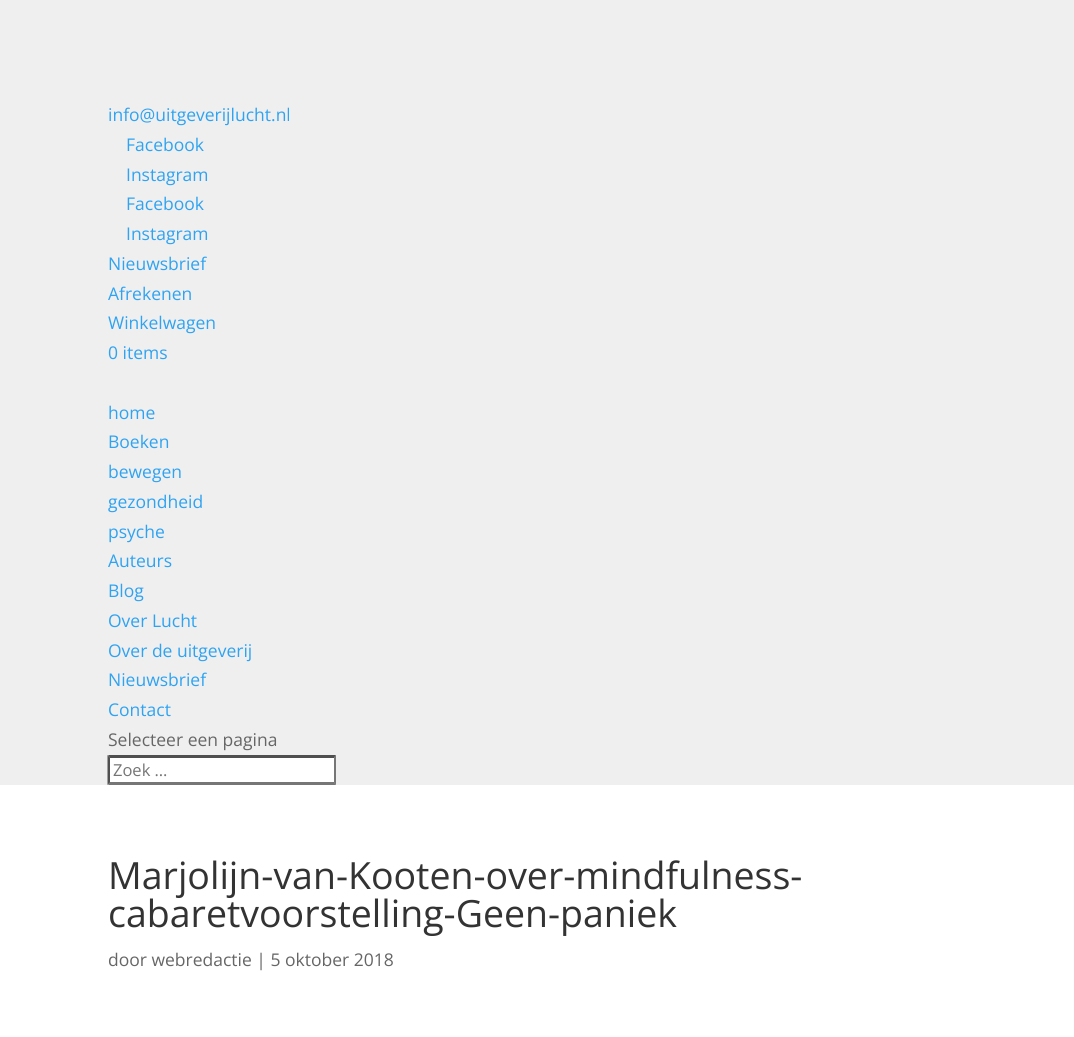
import math
import cairo

surface = cairo.ImageSurface(cairo.FORMAT_RGB24, 1074, 1037)
cr = cairo.Context(surface)
options = cairo.FontOptions()
options.set_hint_metrics(cairo.HINT_METRICS_OFF)
options.set_hint_style(cairo.HINT_STYLE_NONE)
cr.set_font_options(options)
cr.set_miter_limit(4)


def rgb(code):
    cr.set_source_rgb(*(v / 255 for v in bytes.fromhex(code[-6:])))


rgb("#efefef")
cr.paint()
rgb("#ffffff")
cr.rectangle(108, 755, 228, 30)
cr.fill()
rgb("#4f4f4f")
cr.new_path()
cr.move_to(108, 755)
cr.line_to(336, 755)
cr.line_to(334, 758)
cr.line_to(110, 758)
cr.close_path()
cr.fill()
rgb("#767676")
cr.new_path()
cr.move_to(336, 755)
cr.line_to(336, 785)
cr.line_to(334, 782.5)
cr.line_to(334, 757.5)
cr.close_path()
cr.fill()
cr.new_path()
cr.move_to(336, 785)
cr.line_to(108, 785)
cr.line_to(110, 782)
cr.line_to(334, 782)
cr.close_path()
cr.fill()
rgb("#4f4f4f")
cr.new_path()
cr.move_to(107.5, 785)
cr.line_to(107.5, 755)
cr.line_to(110, 757.5)
cr.line_to(110, 782.5)
cr.close_path()
cr.fill()
rgb("#ffffff")
cr.rectangle(0, 785, 1074, 252)
cr.fill()
cr.select_font_face("Open Sans")
cr.set_font_size(17.5)
rgb("#2ea3f2")
for x, y, s in [
    (108, 121, "info@uitgeverijlucht.nl"),
    (126, 151, "Facebook"),
    (126, 181, "Instagram"),
    (126, 210, "Facebook"),
    (126, 240, "Instagram"),
    (108, 270, "Nieuwsbrief"),
    (108, 300, "Afrekenen"),
    (108, 329, "Winkelwagen"),
    (108, 359, "0 items"),
    (108, 419, "home"),
    (108, 448, "Boeken"),
    (108, 478, "bewegen"),
    (108, 508, "gezondheid"),
    (108, 538, "psyche"),
    (108, 567, "Auteurs"),
    (108, 597, "Blog"),
    (108, 627, "Over Lucht"),
    (108, 657, "Over de uitgeverij"),
    (108, 686, "Nieuwsbrief"),
    (108, 716, "Contact"),
]:
    cr.move_to(x, y)
    cr.show_text(s)
rgb("#666666")
cr.move_to(108, 746)
cr.show_text("Selecteer een pagina")
cr.set_font_size(16.5)
rgb("#757575")
cr.move_to(113, 776)
cr.show_text("Zoek …")
cr.set_font_size(37.5)
rgb("#333333")
cr.move_to(108, 889)
cr.show_text("Marjolijn-van-Kooten-over-mindfulness-")
cr.move_to(108, 927)
cr.show_text("cabaretvoorstelling-Geen-paniek")
cr.set_font_size(17.5)
rgb("#666666")
cr.move_to(108, 966)
cr.show_text("door webredactie | 5 oktober 2018")
surface.write_to_png("page.png")
